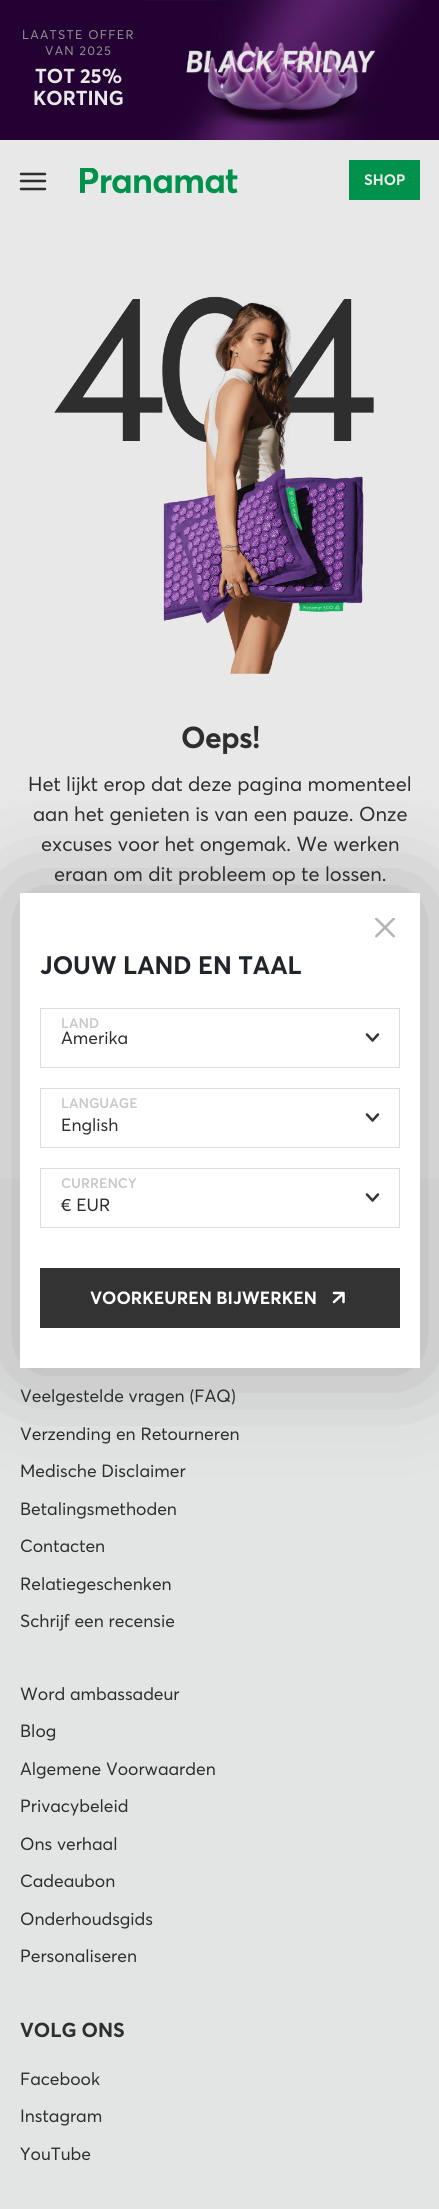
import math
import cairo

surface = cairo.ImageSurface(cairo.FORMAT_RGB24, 439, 2209)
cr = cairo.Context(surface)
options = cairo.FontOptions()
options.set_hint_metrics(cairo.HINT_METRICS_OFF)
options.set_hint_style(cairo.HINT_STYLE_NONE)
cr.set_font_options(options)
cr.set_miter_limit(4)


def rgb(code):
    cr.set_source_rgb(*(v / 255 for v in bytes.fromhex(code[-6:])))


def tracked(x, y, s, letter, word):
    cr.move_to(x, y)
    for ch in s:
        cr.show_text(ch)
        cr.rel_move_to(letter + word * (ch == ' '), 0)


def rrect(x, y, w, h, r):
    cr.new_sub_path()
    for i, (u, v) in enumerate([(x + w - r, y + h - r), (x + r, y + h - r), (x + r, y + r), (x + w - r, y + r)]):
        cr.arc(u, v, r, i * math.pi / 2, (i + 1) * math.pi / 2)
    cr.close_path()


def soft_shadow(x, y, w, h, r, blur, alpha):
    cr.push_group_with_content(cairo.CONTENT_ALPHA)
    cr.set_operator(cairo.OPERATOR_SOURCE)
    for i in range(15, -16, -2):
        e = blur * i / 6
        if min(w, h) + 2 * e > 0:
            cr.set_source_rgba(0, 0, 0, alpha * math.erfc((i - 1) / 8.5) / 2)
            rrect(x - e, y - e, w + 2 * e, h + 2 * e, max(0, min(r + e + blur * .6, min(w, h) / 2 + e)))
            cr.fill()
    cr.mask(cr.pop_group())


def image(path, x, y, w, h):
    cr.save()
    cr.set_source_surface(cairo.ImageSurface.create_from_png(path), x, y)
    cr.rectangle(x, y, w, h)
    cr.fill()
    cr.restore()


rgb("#e8e8e8")
cr.paint()
rgb("#230233")
cr.rectangle(0, 0, 439, 140)
cr.fill()
image("img/1.png", 142, 0, 278, 140)
cr.new_path()
cr.move_to(21, 181)
cr.line_to(45, 181)
cr.move_to(21, 174)
cr.line_to(45, 174)
cr.move_to(21, 189)
cr.line_to(45, 189)
rgb("#2e2e2e")
cr.set_line_width(2.5)
cr.set_line_cap(cairo.LINE_CAP_ROUND)
cr.set_line_join(cairo.LINE_JOIN_ROUND)
cr.stroke()
image("img/2.png", 80, 168, 158, 26)
rgb("#00924c")
cr.rectangle(349, 160, 71, 40)
cr.fill()
image("img/3.png", 54, 296, 320, 378)
rgb("#e3e4e4")
cr.rectangle(0, 1179, 439, 1030)
cr.fill()
rgb("#000000")
soft_shadow(20, 893, 400, 475, 0, 50, 0.25)
rgb("#ffffff")
cr.rectangle(20, 893, 400, 475)
cr.fill()
image("img/4.png", 375, 918, 20, 20)
cr.new_path()
cr.move_to(367, 1034.5)
cr.line_to(372.5, 1040.5)
cr.line_to(378, 1034.5)
rgb("#333333")
cr.stroke()
cr.rectangle(40.5, 1008.5, 359, 59)
rgb("#dddddd")
cr.set_line_width(1)
cr.set_line_cap(cairo.LINE_CAP_BUTT)
cr.set_line_join(cairo.LINE_JOIN_MITER)
cr.stroke()
cr.new_path()
cr.move_to(367, 1114.5)
cr.line_to(372.5, 1120.5)
cr.line_to(378, 1114.5)
rgb("#333333")
cr.set_line_width(2.5)
cr.set_line_cap(cairo.LINE_CAP_ROUND)
cr.set_line_join(cairo.LINE_JOIN_ROUND)
cr.stroke()
cr.rectangle(40.5, 1088.5, 359, 59)
rgb("#dddddd")
cr.set_line_width(1)
cr.set_line_cap(cairo.LINE_CAP_BUTT)
cr.set_line_join(cairo.LINE_JOIN_MITER)
cr.stroke()
cr.new_path()
cr.move_to(367, 1194.5)
cr.line_to(372.5, 1200.5)
cr.line_to(378, 1194.5)
rgb("#333333")
cr.set_line_width(2.5)
cr.set_line_cap(cairo.LINE_CAP_ROUND)
cr.set_line_join(cairo.LINE_JOIN_ROUND)
cr.stroke()
cr.rectangle(40.5, 1168.5, 359, 59)
rgb("#dddddd")
cr.set_line_width(1)
cr.set_line_cap(cairo.LINE_CAP_BUTT)
cr.set_line_join(cairo.LINE_JOIN_MITER)
cr.stroke()
rgb("#333333")
cr.rectangle(40, 1268, 360, 60)
cr.fill()
cr.new_path()
cr.move_to(343.5, 1302)
cr.line_to(343.5, 1293)
cr.line_to(334, 1293)
cr.move_to(334, 1302)
cr.line_to(343.5, 1293)
rgb("#ffffff")
cr.set_line_width(2.5)
cr.set_line_cap(cairo.LINE_CAP_ROUND)
cr.set_line_join(cairo.LINE_JOIN_ROUND)
cr.stroke()
cr.select_font_face("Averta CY")
cr.set_font_size(12.5)
rgb("#909090")
tracked(22, 39, "LAATSTE OFFER", 1.25, 0)
tracked(45, 55, "VAN 2025", 1.25, 0)
cr.select_font_face("Averta CY", cairo.FONT_SLANT_NORMAL, cairo.FONT_WEIGHT_BOLD)
cr.set_font_size(20)
rgb("#e8e8e8")
cr.move_to(35, 83)
cr.show_text("TOT 25%")
cr.move_to(33, 105)
cr.show_text("KORTING")
cr.set_font_size(15)
cr.move_to(364, 185)
cr.show_text("SHOP")
cr.set_font_size(30)
rgb("#2e2e2e")
tracked(181, 748, "Oeps!", -0.5, 0)
cr.select_font_face("Averta CY")
cr.set_font_size(20)
for x, y, s in [
    (28, 791, "Het lijkt erop dat deze pagina momenteel"),
    (33, 821, "aan het genieten is van een pauze. Onze"),
    (41, 851, "excuses voor het ongemak. We werken"),
    (54, 881, "eraan om dit probleem op te lossen."),
]:
    cr.move_to(x, y)
    cr.show_text(s)
cr.select_font_face("Averta CY", cairo.FONT_SLANT_NORMAL, cairo.FONT_WEIGHT_BOLD)
cr.set_font_size(25)
rgb("#212529")
cr.move_to(40, 974)
cr.show_text("JOUW LAND EN TAAL")
cr.select_font_face("Averta CY SemiBold")
cr.set_font_size(13.75)
rgb("#c7c7c7")
cr.move_to(61, 1028)
cr.show_text("LAND")
cr.select_font_face("Averta CY")
cr.set_font_size(17.5)
rgb("#2e2e2e")
cr.move_to(61, 1044)
cr.show_text("Amerika")
cr.select_font_face("Averta CY SemiBold")
cr.set_font_size(13.75)
rgb("#c7c7c7")
cr.move_to(61, 1108)
cr.show_text("LANGUAGE")
cr.select_font_face("Averta CY")
cr.set_font_size(17.5)
rgb("#2e2e2e")
cr.move_to(61, 1131)
cr.show_text("English")
cr.select_font_face("Averta CY SemiBold")
cr.set_font_size(13.75)
rgb("#c7c7c7")
cr.move_to(61, 1188)
cr.show_text("CURRENCY")
cr.select_font_face("Averta CY")
cr.set_font_size(17.5)
rgb("#2e2e2e")
cr.move_to(61, 1211)
cr.show_text("€ EUR")
cr.select_font_face("Averta CY", cairo.FONT_SLANT_NORMAL, cairo.FONT_WEIGHT_BOLD)
rgb("#ffffff")
cr.move_to(90, 1304)
cr.show_text("VOORKEUREN BIJWERKEN")
cr.select_font_face("Averta CY")
rgb("#2e2e2e")
for x, y, s in [
    (20, 1402, "Veelgestelde vragen (FAQ)"),
    (20, 1440, "Verzending en Retourneren"),
    (20, 1477, "Medische Disclaimer"),
    (20, 1515, "Betalingsmethoden"),
    (20, 1552, "Contacten"),
    (20, 1590, "Relatiegeschenken"),
    (20, 1627, "Schrijf een recensie"),
    (20, 1700, "Word ambassadeur"),
    (20, 1737, "Blog"),
    (20, 1775, "Algemene Voorwaarden"),
    (20, 1812, "Privacybeleid"),
    (20, 1850, "Ons verhaal"),
    (20, 1887, "Cadeaubon"),
    (20, 1925, "Onderhoudsgids"),
    (20, 1962, "Personaliseren"),
]:
    cr.move_to(x, y)
    cr.show_text(s)
cr.select_font_face("Averta CY", cairo.FONT_SLANT_NORMAL, cairo.FONT_WEIGHT_BOLD)
cr.set_font_size(20)
cr.move_to(20, 2037)
cr.show_text("VOLG ONS")
cr.select_font_face("Averta CY")
cr.set_font_size(17.5)
for x, y, s in [
    (20, 2085, "Facebook"),
    (20, 2122, "Instagram"),
    (20, 2160, "YouTube"),
]:
    cr.move_to(x, y)
    cr.show_text(s)
surface.write_to_png("page.png")
